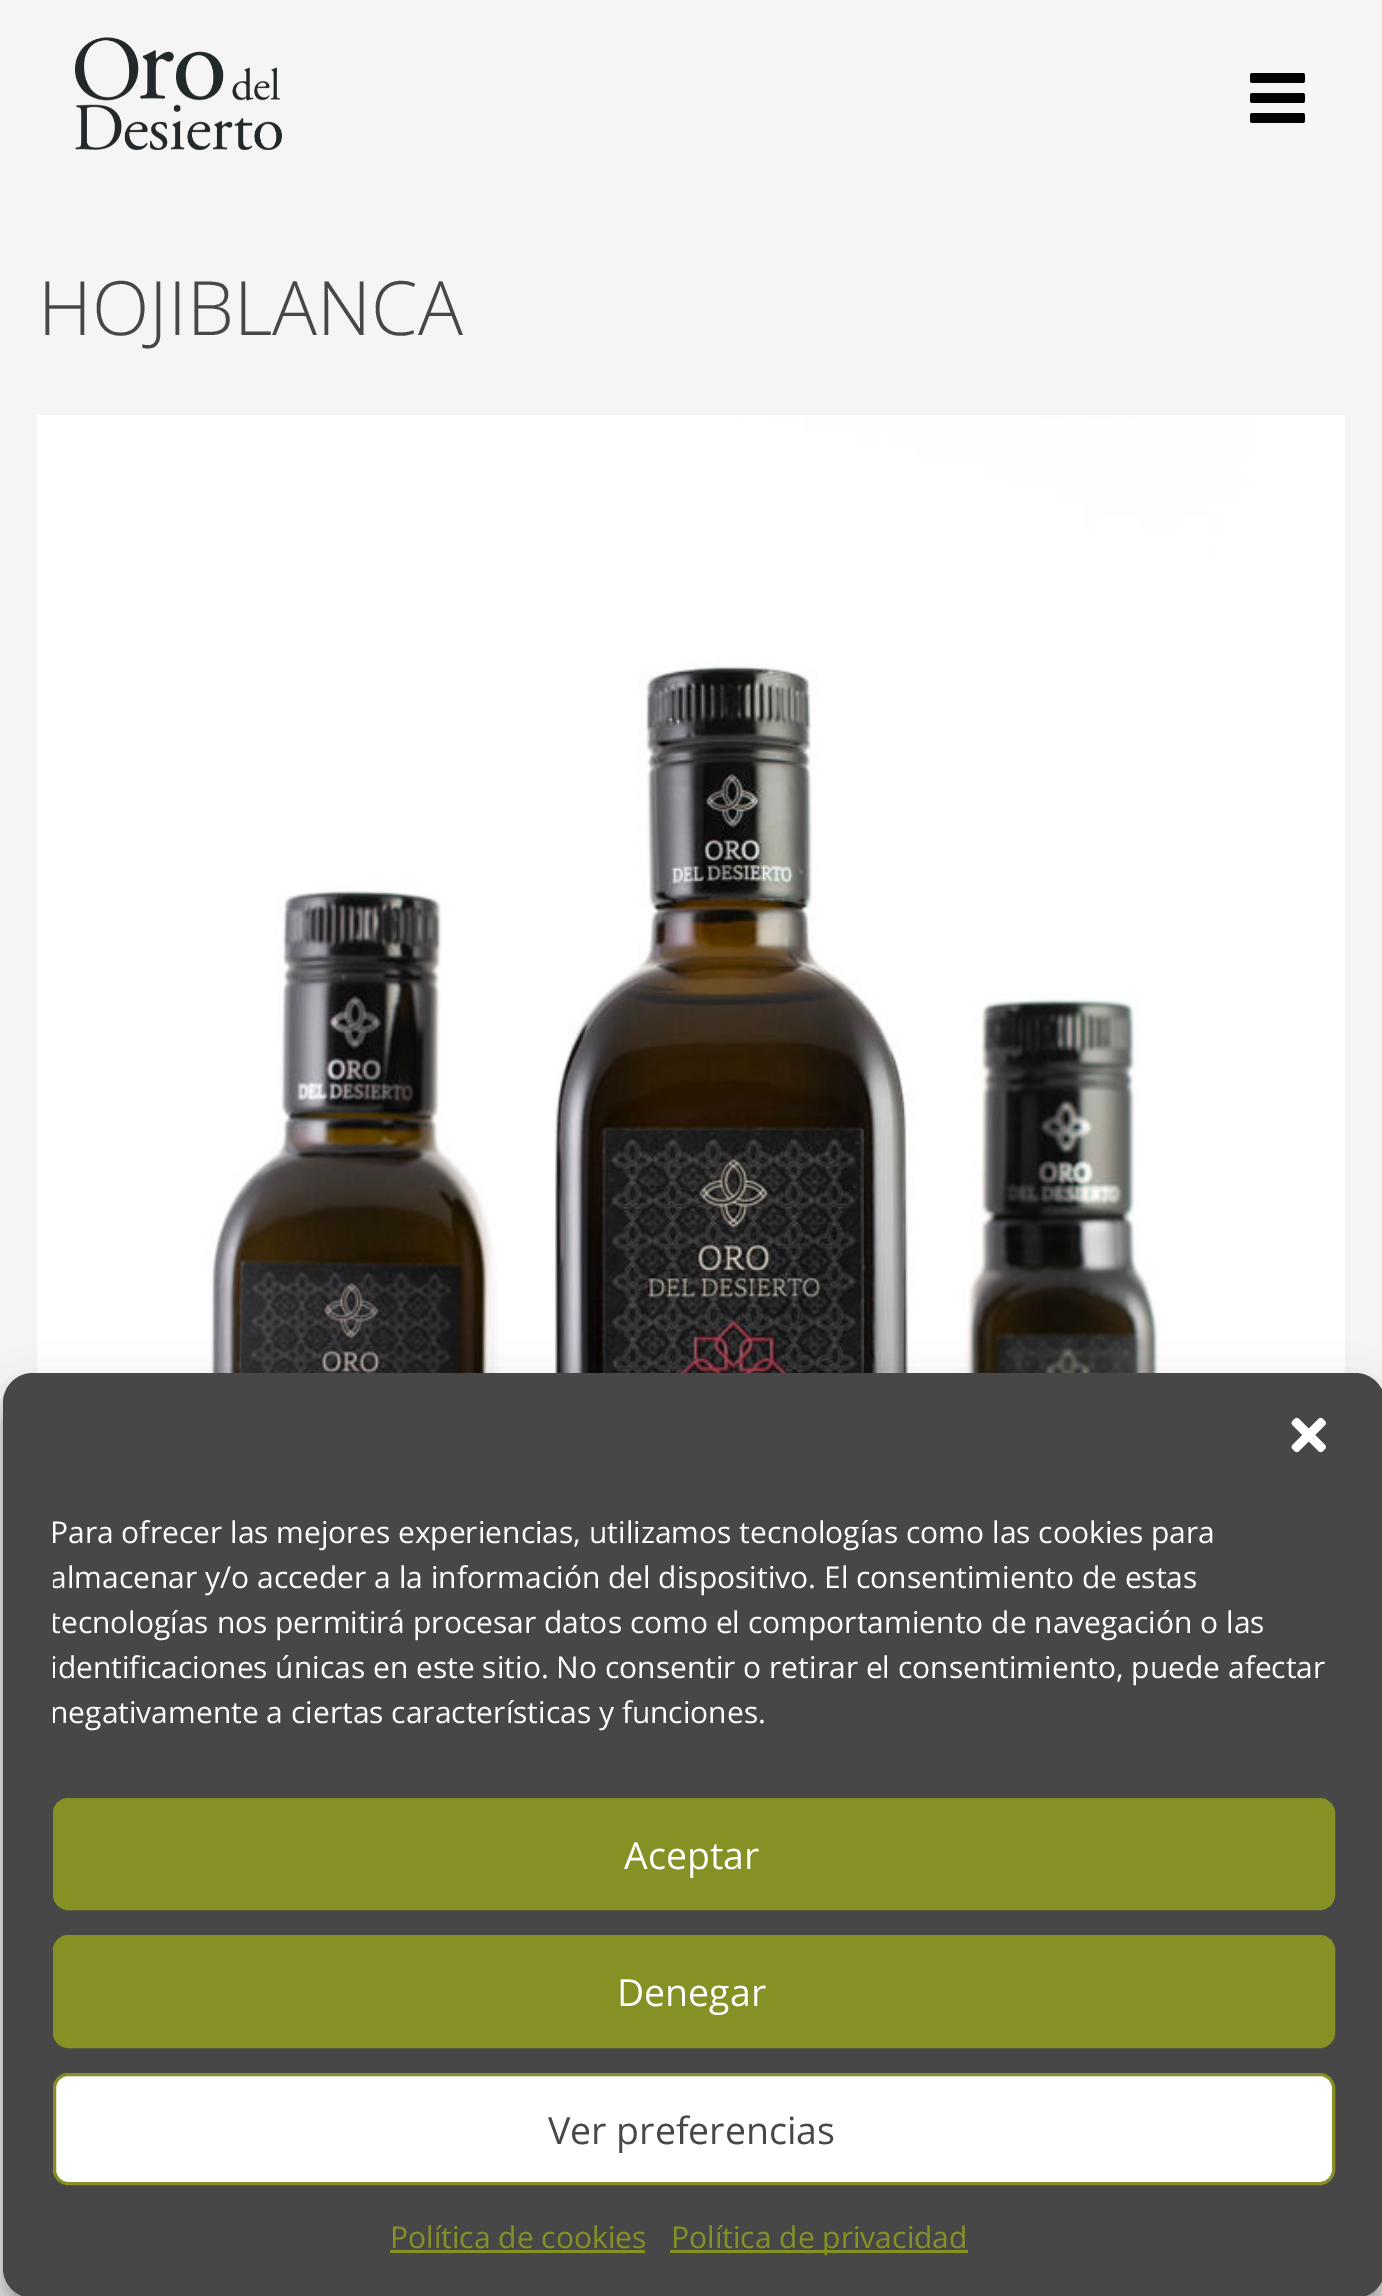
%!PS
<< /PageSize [1382 2296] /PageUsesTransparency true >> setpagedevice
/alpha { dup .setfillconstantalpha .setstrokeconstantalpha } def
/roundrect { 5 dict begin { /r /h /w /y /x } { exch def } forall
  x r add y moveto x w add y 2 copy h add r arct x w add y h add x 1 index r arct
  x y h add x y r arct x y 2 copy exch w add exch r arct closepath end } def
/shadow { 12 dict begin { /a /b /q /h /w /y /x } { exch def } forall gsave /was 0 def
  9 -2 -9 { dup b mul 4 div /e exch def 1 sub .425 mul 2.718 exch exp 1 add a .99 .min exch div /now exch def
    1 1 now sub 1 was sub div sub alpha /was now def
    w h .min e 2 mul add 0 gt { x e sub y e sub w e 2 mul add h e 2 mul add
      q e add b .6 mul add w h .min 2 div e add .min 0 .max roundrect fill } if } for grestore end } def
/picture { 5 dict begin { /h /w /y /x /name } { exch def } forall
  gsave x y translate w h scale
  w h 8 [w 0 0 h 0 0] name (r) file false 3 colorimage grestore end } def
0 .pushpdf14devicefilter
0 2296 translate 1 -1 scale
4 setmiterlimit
0.961 setgray
0 0 1382 2296 rectfill
(img1.rgb) 75 37 207 113 picture
0 setgray
1250 73 55 10 2.5 roundrect fill
1250 93 55 10 2.5 roundrect fill
1250 113 55 10 2.5 roundrect fill
/OpenSans-Light [75 0 0 -75 0 0] selectfont
0.278 setgray
38 335 moveto (HOJIBLANCA) show
(img2.rgb) 37 415 1308 958 picture
gsave
newpath 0 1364 moveto 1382 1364 lineto 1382 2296 lineto 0 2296 lineto closepath 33 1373 moveto 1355 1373 lineto 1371.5 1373 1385 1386.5 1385 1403 curveto 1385 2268 lineto 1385 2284.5 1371.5 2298 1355 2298 curveto 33 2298 lineto 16.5 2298 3 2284.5 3 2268 curveto 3 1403 lineto 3 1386.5 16.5 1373 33 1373 curveto closepath eoclip newpath
0 setgray
3 1388 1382 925 30 7.5 0.23 shadow
grestore
gsave
newpath 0 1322 moveto 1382 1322 lineto 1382 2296 lineto 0 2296 lineto closepath 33 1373 moveto 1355 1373 lineto 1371.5 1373 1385 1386.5 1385 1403 curveto 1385 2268 lineto 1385 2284.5 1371.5 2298 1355 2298 curveto 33 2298 lineto 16.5 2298 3 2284.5 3 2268 curveto 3 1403 lineto 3 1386.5 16.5 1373 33 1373 curveto closepath eoclip newpath
0 setgray
3 1398 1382 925 30 25 0.19 shadow
grestore
3 1373 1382 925 30 roundrect fill
(img3.rgb) 1291 1417 35 36 picture
gsave
53 1510 1282 238 rectclip
/OpenSans-Regular [30 0 0 -30 0 0] selectfont
1 setgray
50 1543 moveto (Para ofrecer las mejores experiencias, utilizamos tecnologías como las cookies para) show
50 1588 moveto (almacenar y/o acceder a la información del dispositivo. El consentimiento de estas) show
50 1633 moveto (tecnologías nos permitirá procesar datos como el comportamiento de navegación o las) show
50 1678 moveto (identificaciones únicas en este sitio. No consentir o retirar el consentimiento, puede afectar) show
50 1723 moveto (negativamente a ciertas características y funciones.) show
grestore
0.525 0.565 0.145 setrgbcolor
54.5 1799.5 1279 109 13.5 roundrect gsave fill grestore
3 setlinewidth
stroke
/OpenSans-Regular [37.5 0 0 -37.5 0 0] selectfont
1 setgray
624 1869 moveto (Aceptar) show
0.525 0.565 0.145 setrgbcolor
54.5 1936.5 1279 110 13.5 roundrect gsave fill grestore
stroke
1 setgray
617 2006 moveto (Denegar) show
54.5 2074.5 1279 109 13.5 roundrect gsave fill grestore
0.525 0.565 0.145 setrgbcolor
stroke
0.278 setgray
548 2144 moveto (Ver preferencias) show
/OpenSans-Regular [30 0 0 -30 0 0] selectfont
0.525 0.565 0.145 setrgbcolor
390 2248 moveto (Política de cookies) show
390 2250 255 3 rectfill
670 2250 298 3 rectfill
671 2248 moveto (Política de privacidad) show
.poppdf14devicefilter showpage
